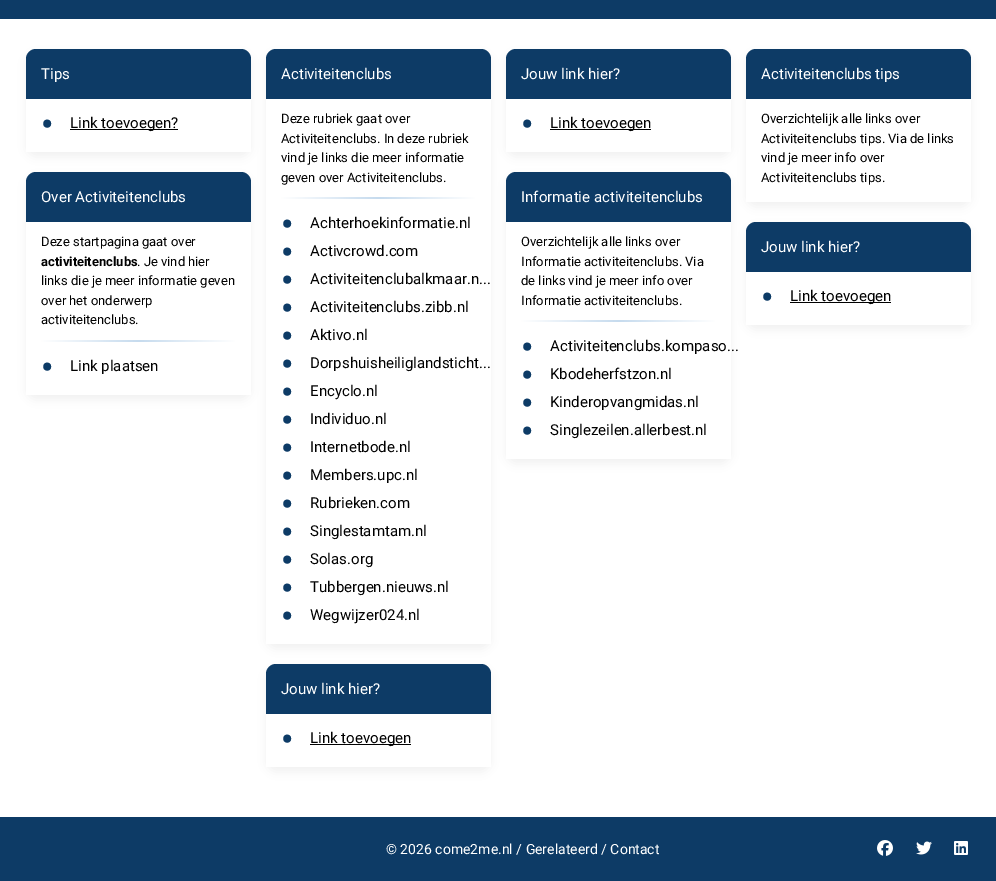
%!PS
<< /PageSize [996 881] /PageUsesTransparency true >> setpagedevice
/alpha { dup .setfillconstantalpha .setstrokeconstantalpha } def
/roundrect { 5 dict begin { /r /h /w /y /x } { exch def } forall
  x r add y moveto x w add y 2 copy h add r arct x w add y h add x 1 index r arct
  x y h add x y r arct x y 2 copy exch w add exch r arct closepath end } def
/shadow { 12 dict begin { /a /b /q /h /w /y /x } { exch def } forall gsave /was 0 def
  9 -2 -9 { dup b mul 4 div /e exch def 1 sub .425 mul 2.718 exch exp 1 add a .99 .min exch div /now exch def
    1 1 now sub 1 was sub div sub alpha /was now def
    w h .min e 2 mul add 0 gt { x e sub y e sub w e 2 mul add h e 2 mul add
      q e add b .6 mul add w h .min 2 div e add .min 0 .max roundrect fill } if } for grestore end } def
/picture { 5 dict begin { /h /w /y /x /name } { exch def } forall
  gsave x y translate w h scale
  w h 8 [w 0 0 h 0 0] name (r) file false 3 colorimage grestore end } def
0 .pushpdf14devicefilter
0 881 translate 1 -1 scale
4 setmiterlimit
1 setgray
0 0 996 881 rectfill
0.051 0.231 0.4 setrgbcolor
0 0 996 19 rectfill
gsave
newpath 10 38 moveto 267 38 lineto 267 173 lineto 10 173 lineto closepath 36 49 moveto 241 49 lineto 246.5 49 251 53.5 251 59 curveto 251 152 lineto 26 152 lineto 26 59 lineto 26 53.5 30.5 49 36 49 curveto closepath eoclip newpath
0 setgray
26 54 225 103 10 5 0.05 shadow
grestore
newpath 36 49 moveto 241 49 lineto 246.5 49 251 53.5 251 59 curveto 251 99 lineto 26 99 lineto 26 59 lineto 26 53.5 30.5 49 36 49 curveto closepath fill
/Roboto-Regular [15 0 0 -15 0 0] selectfont
1 setgray
41 79 moveto (Tips) show
/Roboto-Bold [34 0 0 -34 0 0] selectfont
0.051 0.231 0.4 setrgbcolor
41 136 moveto (•) show
0 setgray
70 129 108 1 rectfill
/Roboto-Regular [15 0 0 -15 0 0] selectfont
70 128 moveto (Link toevoegen?) show
gsave
newpath 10 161 moveto 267 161 lineto 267 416 lineto 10 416 lineto closepath 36 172 moveto 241 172 lineto 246.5 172 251 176.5 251 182 curveto 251 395 lineto 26 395 lineto 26 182 lineto 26 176.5 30.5 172 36 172 curveto closepath eoclip newpath
26 177 225 223 10 5 0.05 shadow
grestore
0.051 0.231 0.4 setrgbcolor
newpath 36 172 moveto 241 172 lineto 246.5 172 251 176.5 251 182 curveto 251 222 lineto 26 222 lineto 26 182 lineto 26 176.5 30.5 172 36 172 curveto closepath fill
1 setgray
41 202 moveto (Over Activiteitenclubs) show
/Roboto-Regular [13 0 0 -13 0 0] selectfont
0 setgray
41 246 moveto (Deze startpagina gaat over) show
/Roboto-Bold [13 0 0 -13 0 0] selectfont
41 266 moveto (activiteitenclubs) show
/Roboto-Regular [13 0 0 -13 0 0] selectfont
137 266 moveto (. Je vind hier) show
41 285 moveto (links die je meer informatie geven) show
41 305 moveto (over het onderwerp) show
41 324 moveto (activiteitenclubs.) show
gsave newpath 41 340 moveto 236 340 lineto 236 342 lineto 41 342 lineto closepath clip newpath
<< /ShadingType 2 /ColorSpace /DeviceRGB /Coords [41 341 236 341] /Extend [true true] /Function << /FunctionType 3 /Domain [0 1] /Functions [<< /FunctionType 2 /Domain [0 1] /C0 [1 1 1] /C1 [0.776 0.859 0.933] /N 1 >> << /FunctionType 2 /Domain [0 1] /C0 [0.776 0.859 0.933] /C1 [1 1 1] /N 1 >>] /Bounds [0.5] /Encode [0 1 0 1] >> >> shfill grestore
/Roboto-Bold [34 0 0 -34 0 0] selectfont
0.051 0.231 0.4 setrgbcolor
41 379 moveto (•) show
/Roboto-Regular [15 0 0 -15 0 0] selectfont
0 setgray
70 371 moveto (Link plaatsen) show
gsave
newpath 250 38 moveto 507 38 lineto 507 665 lineto 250 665 lineto closepath 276 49 moveto 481 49 lineto 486.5 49 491 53.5 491 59 curveto 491 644 lineto 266 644 lineto 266 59 lineto 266 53.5 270.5 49 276 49 curveto closepath eoclip newpath
266 54 225 595 10 5 0.05 shadow
grestore
0.051 0.231 0.4 setrgbcolor
newpath 276 49 moveto 481 49 lineto 486.5 49 491 53.5 491 59 curveto 491 99 lineto 266 99 lineto 266 59 lineto 266 53.5 270.5 49 276 49 curveto closepath fill
1 setgray
281 79 moveto (Activiteitenclubs) show
/Roboto-Regular [13 0 0 -13 0 0] selectfont
0 setgray
281 123 moveto (Deze rubriek gaat over) show
281 143 moveto (Activiteitenclubs. In deze rubriek) show
281 162 moveto (vind je links die meer informatie) show
281 182 moveto (geven over Activiteitenclubs.) show
gsave newpath 281 197 moveto 476 197 lineto 476 199 lineto 281 199 lineto closepath clip newpath
<< /ShadingType 2 /ColorSpace /DeviceRGB /Coords [281 198 476 198] /Extend [true true] /Function << /FunctionType 3 /Domain [0 1] /Functions [<< /FunctionType 2 /Domain [0 1] /C0 [1 1 1] /C1 [0.776 0.859 0.933] /N 1 >> << /FunctionType 2 /Domain [0 1] /C0 [0.776 0.859 0.933] /C1 [1 1 1] /N 1 >>] /Bounds [0.5] /Encode [0 1 0 1] >> >> shfill grestore
/Roboto-Bold [34 0 0 -34 0 0] selectfont
0.051 0.231 0.4 setrgbcolor
281 236 moveto (•) show
/Roboto-Regular [15 0 0 -15 0 0] selectfont
0 setgray
310 228 moveto (Achterhoekinformatie.nl) show
/Roboto-Bold [34 0 0 -34 0 0] selectfont
0.051 0.231 0.4 setrgbcolor
281 264 moveto (•) show
/Roboto-Regular [15 0 0 -15 0 0] selectfont
0 setgray
310 256 moveto (Activcrowd.com) show
/Roboto-Bold [34 0 0 -34 0 0] selectfont
0.051 0.231 0.4 setrgbcolor
281 292 moveto (•) show
/Roboto-Regular [15 0 0 -15 0 0] selectfont
0 setgray
310 284 moveto (Activiteitenclubalkmaar.n...) show
/Roboto-Bold [34 0 0 -34 0 0] selectfont
0.051 0.231 0.4 setrgbcolor
281 320 moveto (•) show
/Roboto-Regular [15 0 0 -15 0 0] selectfont
0 setgray
310 312 moveto (Activiteitenclubs.zibb.nl) show
/Roboto-Bold [34 0 0 -34 0 0] selectfont
0.051 0.231 0.4 setrgbcolor
281 348 moveto (•) show
/Roboto-Regular [15 0 0 -15 0 0] selectfont
0 setgray
310 340 moveto (Aktivo.nl) show
/Roboto-Bold [34 0 0 -34 0 0] selectfont
0.051 0.231 0.4 setrgbcolor
281 376 moveto (•) show
/Roboto-Regular [15 0 0 -15 0 0] selectfont
0 setgray
310 368 moveto (Dorpshuisheiliglandsticht...) show
/Roboto-Bold [34 0 0 -34 0 0] selectfont
0.051 0.231 0.4 setrgbcolor
281 404 moveto (•) show
/Roboto-Regular [15 0 0 -15 0 0] selectfont
0 setgray
310 396 moveto (Encyclo.nl) show
/Roboto-Bold [34 0 0 -34 0 0] selectfont
0.051 0.231 0.4 setrgbcolor
281 432 moveto (•) show
/Roboto-Regular [15 0 0 -15 0 0] selectfont
0 setgray
310 424 moveto (Individuo.nl) show
/Roboto-Bold [34 0 0 -34 0 0] selectfont
0.051 0.231 0.4 setrgbcolor
281 460 moveto (•) show
/Roboto-Regular [15 0 0 -15 0 0] selectfont
0 setgray
310 452 moveto (Internetbode.nl) show
/Roboto-Bold [34 0 0 -34 0 0] selectfont
0.051 0.231 0.4 setrgbcolor
281 488 moveto (•) show
/Roboto-Regular [15 0 0 -15 0 0] selectfont
0 setgray
310 480 moveto (Members.upc.nl) show
/Roboto-Bold [34 0 0 -34 0 0] selectfont
0.051 0.231 0.4 setrgbcolor
281 516 moveto (•) show
/Roboto-Regular [15 0 0 -15 0 0] selectfont
0 setgray
310 508 moveto (Rubrieken.com) show
/Roboto-Bold [34 0 0 -34 0 0] selectfont
0.051 0.231 0.4 setrgbcolor
281 544 moveto (•) show
/Roboto-Regular [15 0 0 -15 0 0] selectfont
0 setgray
310 536 moveto (Singlestamtam.nl) show
/Roboto-Bold [34 0 0 -34 0 0] selectfont
0.051 0.231 0.4 setrgbcolor
281 572 moveto (•) show
/Roboto-Regular [15 0 0 -15 0 0] selectfont
0 setgray
310 564 moveto (Solas.org) show
/Roboto-Bold [34 0 0 -34 0 0] selectfont
0.051 0.231 0.4 setrgbcolor
281 600 moveto (•) show
/Roboto-Regular [15 0 0 -15 0 0] selectfont
0 setgray
310 592 moveto (Tubbergen.nieuws.nl) show
/Roboto-Bold [34 0 0 -34 0 0] selectfont
0.051 0.231 0.4 setrgbcolor
281 628 moveto (•) show
/Roboto-Regular [15 0 0 -15 0 0] selectfont
0 setgray
310 620 moveto (Wegwijzer024.nl) show
gsave
newpath 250 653 moveto 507 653 lineto 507 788 lineto 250 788 lineto closepath 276 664 moveto 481 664 lineto 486.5 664 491 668.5 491 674 curveto 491 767 lineto 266 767 lineto 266 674 lineto 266 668.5 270.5 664 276 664 curveto closepath eoclip newpath
266 669 225 103 10 5 0.05 shadow
grestore
0.051 0.231 0.4 setrgbcolor
newpath 276 664 moveto 481 664 lineto 486.5 664 491 668.5 491 674 curveto 491 714 lineto 266 714 lineto 266 674 lineto 266 668.5 270.5 664 276 664 curveto closepath fill
1 setgray
281 694 moveto (Jouw link hier?) show
/Roboto-Bold [34 0 0 -34 0 0] selectfont
0.051 0.231 0.4 setrgbcolor
281 751 moveto (•) show
0 setgray
310 744 101 1 rectfill
/Roboto-Regular [15 0 0 -15 0 0] selectfont
310 743 moveto (Link toevoegen) show
gsave
newpath 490 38 moveto 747 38 lineto 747 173 lineto 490 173 lineto closepath 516 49 moveto 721 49 lineto 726.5 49 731 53.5 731 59 curveto 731 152 lineto 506 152 lineto 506 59 lineto 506 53.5 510.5 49 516 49 curveto closepath eoclip newpath
506 54 225 103 10 5 0.05 shadow
grestore
0.051 0.231 0.4 setrgbcolor
newpath 516 49 moveto 721 49 lineto 726.5 49 731 53.5 731 59 curveto 731 99 lineto 506 99 lineto 506 59 lineto 506 53.5 510.5 49 516 49 curveto closepath fill
1 setgray
521 79 moveto (Jouw link hier?) show
/Roboto-Bold [34 0 0 -34 0 0] selectfont
0.051 0.231 0.4 setrgbcolor
521 136 moveto (•) show
0 setgray
550 129 101 1 rectfill
/Roboto-Regular [15 0 0 -15 0 0] selectfont
550 128 moveto (Link toevoegen) show
gsave
newpath 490 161 moveto 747 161 lineto 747 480 lineto 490 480 lineto closepath 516 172 moveto 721 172 lineto 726.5 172 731 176.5 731 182 curveto 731 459 lineto 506 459 lineto 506 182 lineto 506 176.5 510.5 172 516 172 curveto closepath eoclip newpath
506 177 225 287 10 5 0.05 shadow
grestore
0.051 0.231 0.4 setrgbcolor
newpath 516 172 moveto 721 172 lineto 726.5 172 731 176.5 731 182 curveto 731 222 lineto 506 222 lineto 506 182 lineto 506 176.5 510.5 172 516 172 curveto closepath fill
1 setgray
521 202 moveto (Informatie activiteitenclubs) show
/Roboto-Regular [13 0 0 -13 0 0] selectfont
0 setgray
521 246 moveto (Overzichtelijk alle links over) show
521 266 moveto (Informatie activiteitenclubs. Via) show
521 285 moveto (de links vind je meer info over) show
521 305 moveto (Informatie activiteitenclubs.) show
gsave newpath 521 320 moveto 716 320 lineto 716 322 lineto 521 322 lineto closepath clip newpath
<< /ShadingType 2 /ColorSpace /DeviceRGB /Coords [521 321 716 321] /Extend [true true] /Function << /FunctionType 3 /Domain [0 1] /Functions [<< /FunctionType 2 /Domain [0 1] /C0 [1 1 1] /C1 [0.776 0.859 0.933] /N 1 >> << /FunctionType 2 /Domain [0 1] /C0 [0.776 0.859 0.933] /C1 [1 1 1] /N 1 >>] /Bounds [0.5] /Encode [0 1 0 1] >> >> shfill grestore
/Roboto-Bold [34 0 0 -34 0 0] selectfont
0.051 0.231 0.4 setrgbcolor
521 359 moveto (•) show
/Roboto-Regular [15 0 0 -15 0 0] selectfont
0 setgray
550 351 moveto (Activiteitenclubs.kompaso...) show
/Roboto-Bold [34 0 0 -34 0 0] selectfont
0.051 0.231 0.4 setrgbcolor
521 387 moveto (•) show
/Roboto-Regular [15 0 0 -15 0 0] selectfont
0 setgray
550 379 moveto (Kbodeherfstzon.nl) show
/Roboto-Bold [34 0 0 -34 0 0] selectfont
0.051 0.231 0.4 setrgbcolor
521 415 moveto (•) show
/Roboto-Regular [15 0 0 -15 0 0] selectfont
0 setgray
550 407 moveto (Kinderopvangmidas.nl) show
/Roboto-Bold [34 0 0 -34 0 0] selectfont
0.051 0.231 0.4 setrgbcolor
521 443 moveto (•) show
/Roboto-Regular [15 0 0 -15 0 0] selectfont
0 setgray
550 435 moveto (Singlezeilen.allerbest.nl) show
gsave
newpath 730 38 moveto 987 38 lineto 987 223 lineto 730 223 lineto closepath 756 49 moveto 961 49 lineto 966.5 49 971 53.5 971 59 curveto 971 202 lineto 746 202 lineto 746 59 lineto 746 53.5 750.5 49 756 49 curveto closepath eoclip newpath
746 54 225 153 10 5 0.05 shadow
grestore
0.051 0.231 0.4 setrgbcolor
newpath 756 49 moveto 961 49 lineto 966.5 49 971 53.5 971 59 curveto 971 99 lineto 746 99 lineto 746 59 lineto 746 53.5 750.5 49 756 49 curveto closepath fill
1 setgray
761 79 moveto (Activiteitenclubs tips) show
/Roboto-Regular [13 0 0 -13 0 0] selectfont
0 setgray
761 123 moveto (Overzichtelijk alle links over) show
761 143 moveto (Activiteitenclubs tips. Via de links) show
761 162 moveto (vind je meer info over) show
761 182 moveto (Activiteitenclubs tips.) show
gsave
newpath 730 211 moveto 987 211 lineto 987 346 lineto 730 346 lineto closepath 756 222 moveto 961 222 lineto 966.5 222 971 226.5 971 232 curveto 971 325 lineto 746 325 lineto 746 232 lineto 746 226.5 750.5 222 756 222 curveto closepath eoclip newpath
746 227 225 103 10 5 0.05 shadow
grestore
0.051 0.231 0.4 setrgbcolor
newpath 756 222 moveto 961 222 lineto 966.5 222 971 226.5 971 232 curveto 971 272 lineto 746 272 lineto 746 232 lineto 746 226.5 750.5 222 756 222 curveto closepath fill
/Roboto-Regular [15 0 0 -15 0 0] selectfont
1 setgray
761 252 moveto (Jouw link hier?) show
/Roboto-Bold [34 0 0 -34 0 0] selectfont
0.051 0.231 0.4 setrgbcolor
761 309 moveto (•) show
0 setgray
790 302 101 1 rectfill
/Roboto-Regular [15 0 0 -15 0 0] selectfont
790 301 moveto (Link toevoegen) show
0.051 0.231 0.4 setrgbcolor
0 817 996 64 rectfill
/Roboto-Regular [14 0 0 -14 0 0] selectfont
1 setgray
386 854 moveto (© 2026 come2me.nl / Gerelateerd / Contact) show
(img1.rgb) 877 840 16 16 picture
(img2.rgb) 916 841 16 14 picture
(img3.rgb) 954 841 14 14 picture
.poppdf14devicefilter showpage
